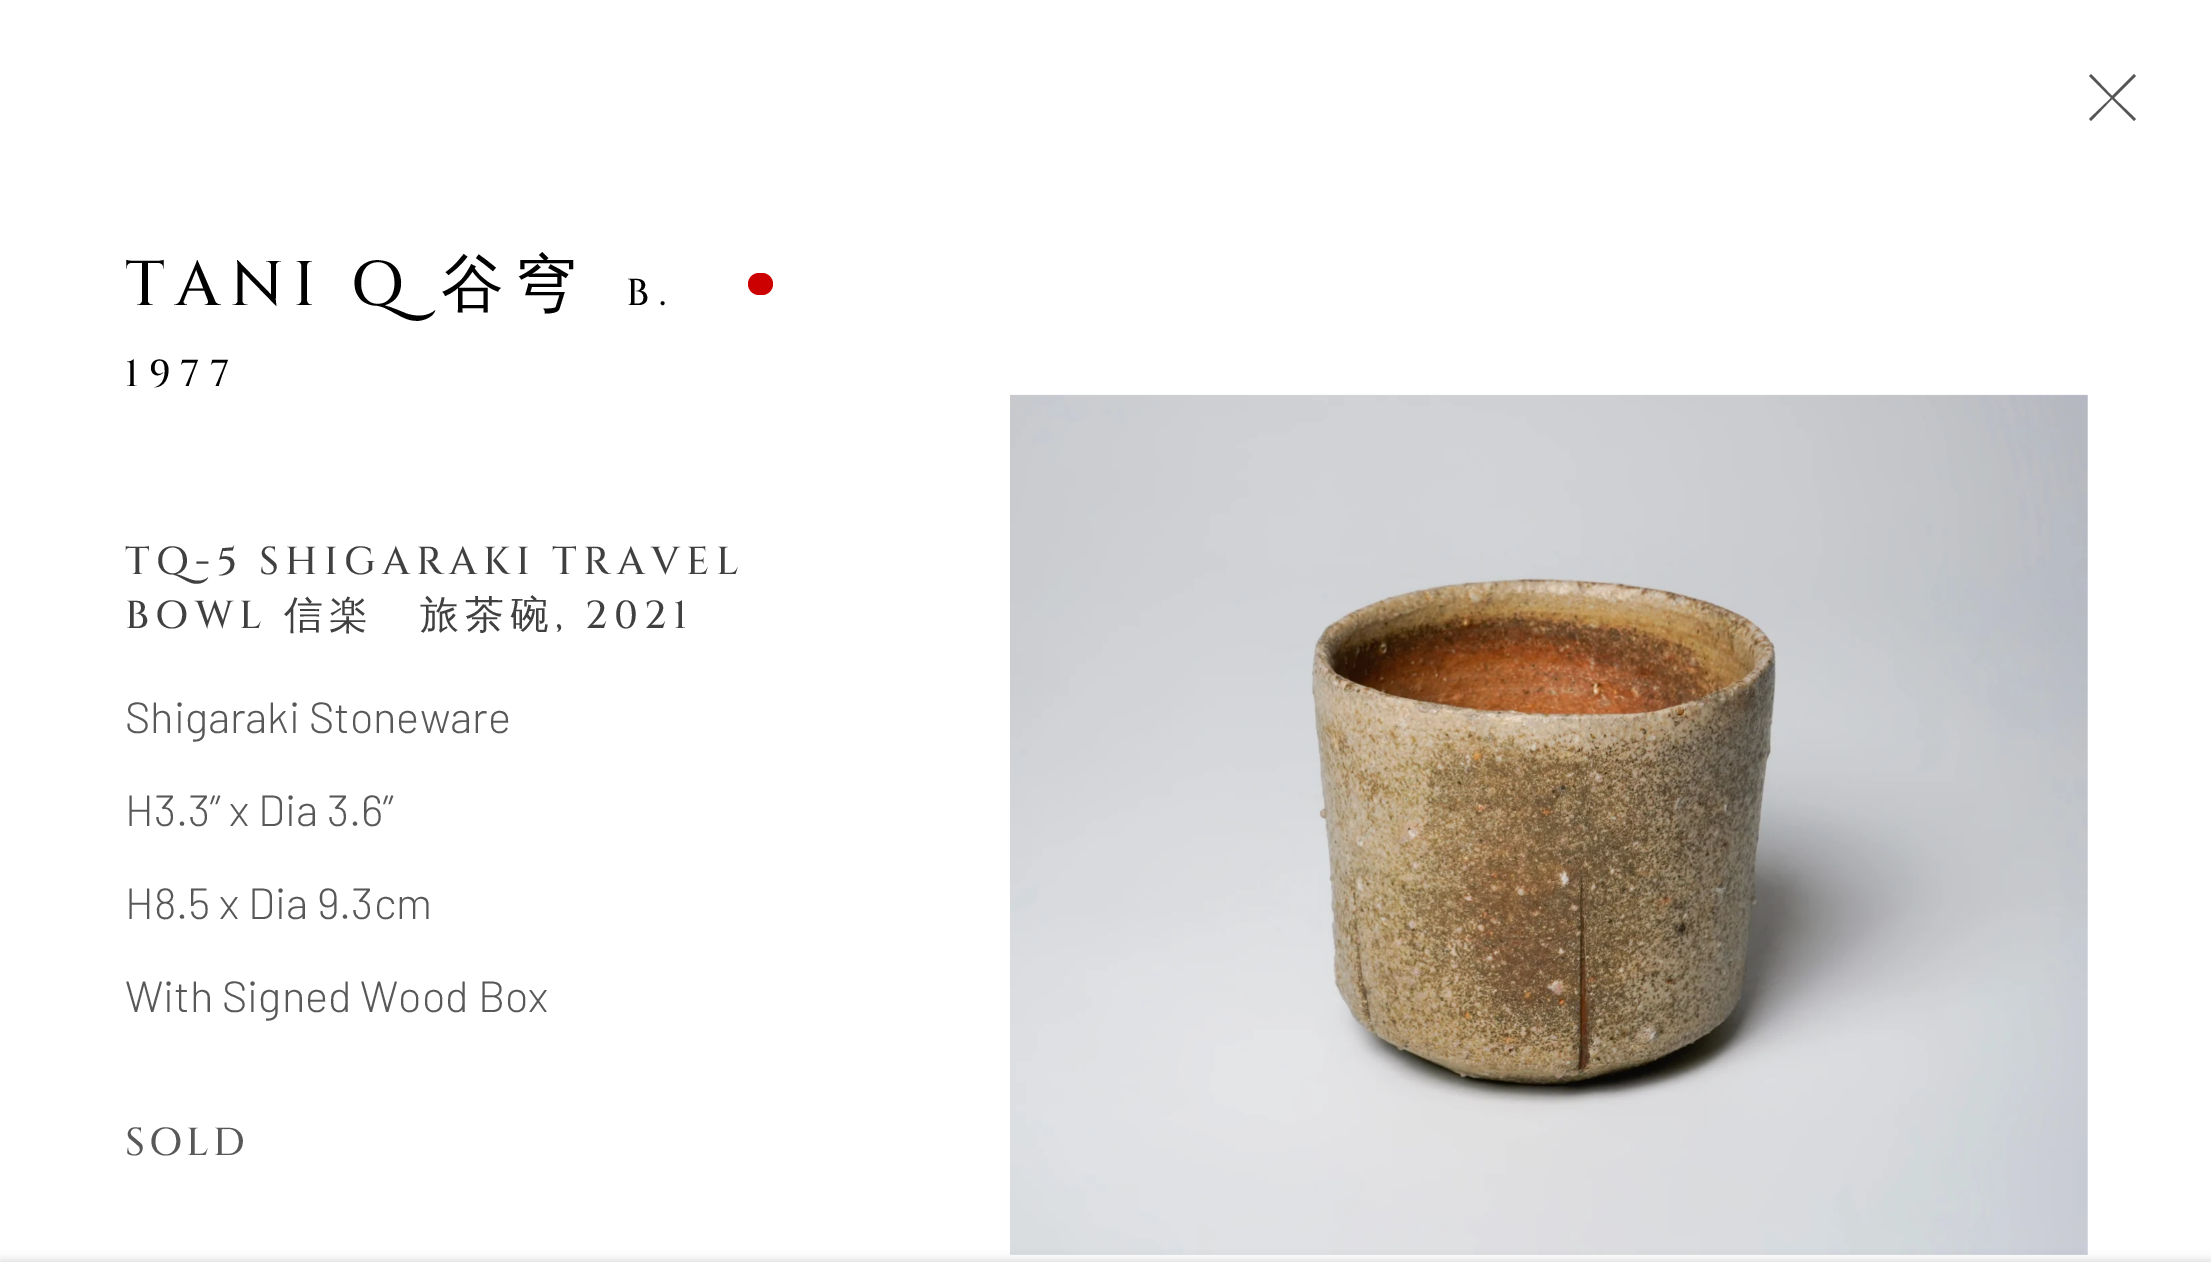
%!PS
<< /PageSize [2211 1262] /PageUsesTransparency true >> setpagedevice
/alpha { dup .setfillconstantalpha .setstrokeconstantalpha } def
/roundrect { 5 dict begin { /r /h /w /y /x } { exch def } forall
  x r add y moveto x w add y 2 copy h add r arct x w add y h add x 1 index r arct
  x y h add x y r arct x y 2 copy exch w add exch r arct closepath end } def
/shadow { 12 dict begin { /a /b /q /h /w /y /x } { exch def } forall gsave /was 0 def
  9 -2 -9 { dup b mul 4 div /e exch def 1 sub .425 mul 2.718 exch exp 1 add a .99 .min exch div /now exch def
    1 1 now sub 1 was sub div sub alpha /was now def
    w h .min e 2 mul add 0 gt { x e sub y e sub w e 2 mul add h e 2 mul add
      q e add b .6 mul add w h .min 2 div e add .min 0 .max roundrect fill } if } for grestore end } def
/picture { 5 dict begin { /h /w /y /x /name } { exch def } forall
  gsave x y translate w h scale
  w h 8 [w 0 0 h 0 0] name (r) file false 3 colorimage grestore end } def
0 .pushpdf14devicefilter
0 1262 translate 1 -1 scale
4 setmiterlimit
1 setgray
0 0 2211 1262 rectfill
0.333 setgray
newpath 2136 76 moveto 2134 74 lineto 2112 96 lineto 2091 74 lineto 2089 76 lineto 2111 98 lineto 2089 119 lineto 2091 121 lineto 2112 99 lineto 2134 121 lineto 2136 119 lineto 2114 98 lineto closepath fill
/Cinzel-Medium [63 0 0 -63 0 0] selectfont
0.004 setgray
125 305 moveto 10 0 (TANI Q) ashow
/WenQuanYiZenHei-Medium [63 0 0 -63 0 0] selectfont
441 305 moveto 10 0 (谷穹) ashow
/Cinzel-Medium [37.5 0 0 -37.5 0 0] selectfont
626 305 moveto 10 0 (B.) ashow
125 386 moveto 10 0 (1977) ashow
0.8 0 0 setrgbcolor
748 273 25 22 11 roundrect fill
/Cinzel-Medium [39 0 0 -39 0 0] selectfont
0.251 setgray
125 574 moveto 6.25 0 (TQ-5 SHIGARAKI TRAVEL) ashow
125 628 moveto 6.25 0 (BOWL) ashow
/WenQuanYiZenHei-Medium [39 0 0 -39 0 0] selectfont
284 628 moveto 6.25 0 (信楽　旅茶碗) ashow
/Cinzel-Medium [39 0 0 -39 0 0] selectfont
555 628 moveto 6.25 0 (, 2021) ashow
/Barlow-Light [43.5 0 0 -43.5 0 0] selectfont
0.345 setgray
125 733 moveto (Shigaraki Stoneware) show
125 826 moveto (H3.3” x Dia 3.6”) show
125 919 moveto (H8.5 x Dia 9.3cm) show
125 1012 moveto (With Signed Wood Box) show
/Cinzel-Medium [39 0 0 -39 0 0] selectfont
125 1155 moveto 4 0 (SOLD) ashow
(img1.rgb) 1010 394 1078 861 picture
0 setgray
0 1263 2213 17 0 6 0.23 shadow
.poppdf14devicefilter showpage
